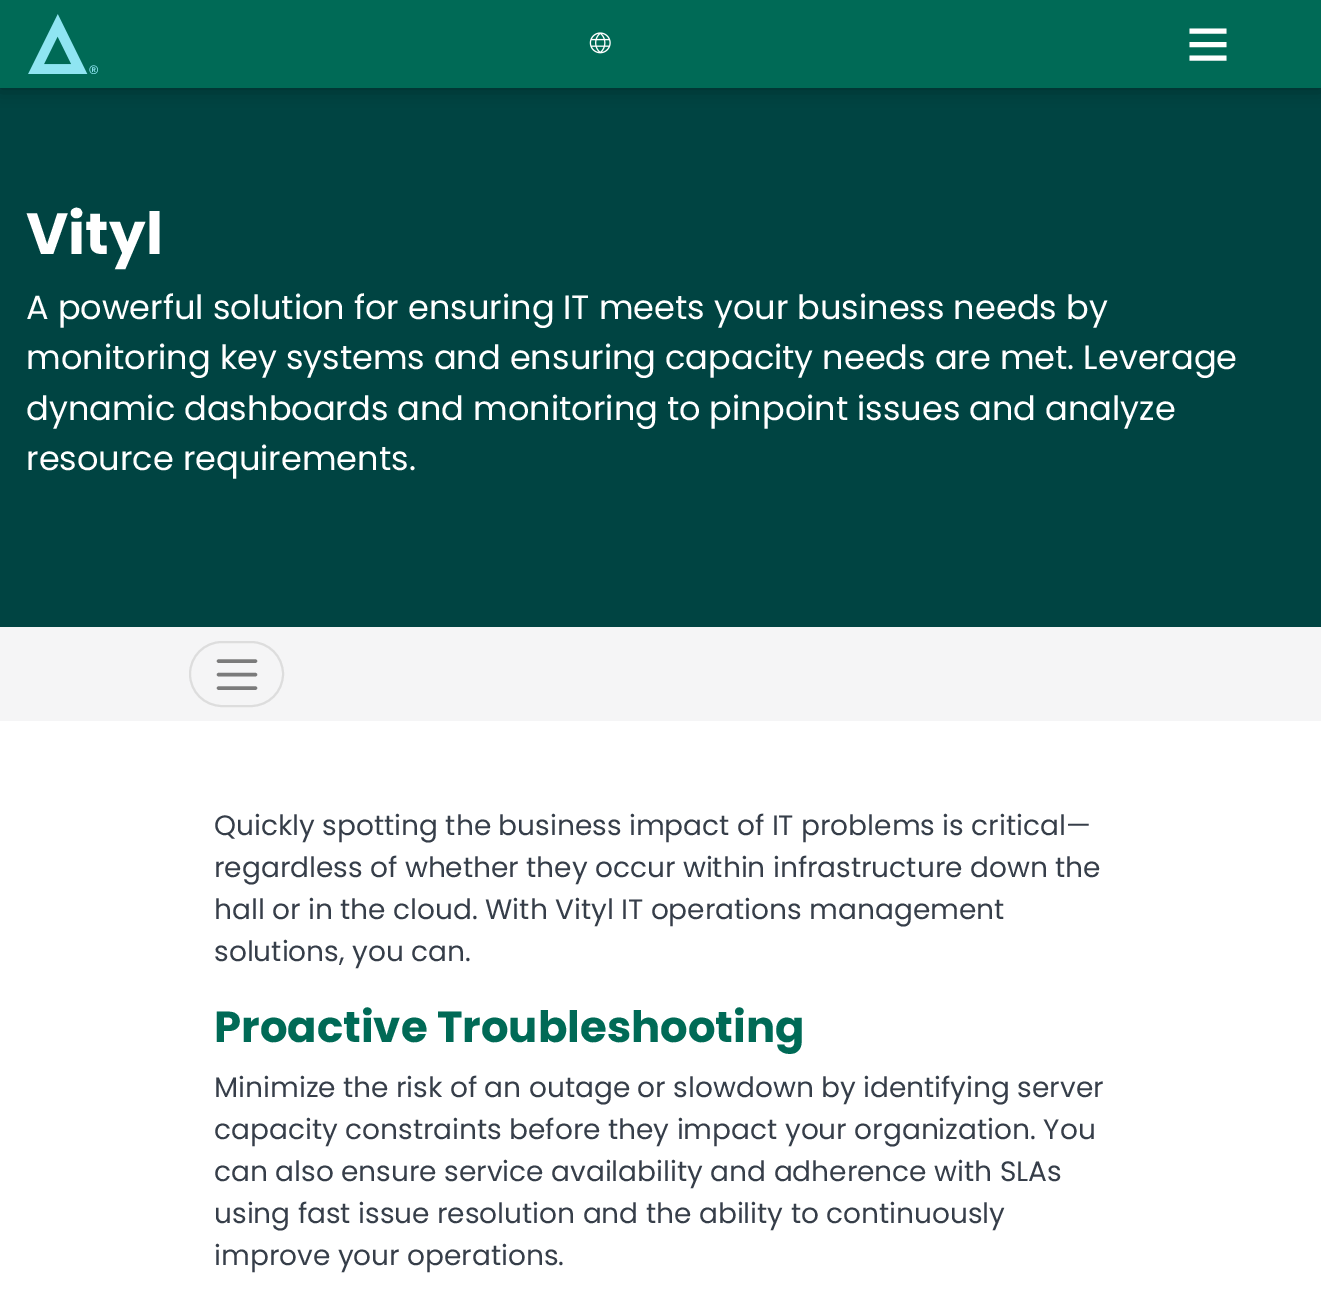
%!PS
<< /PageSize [1321 1289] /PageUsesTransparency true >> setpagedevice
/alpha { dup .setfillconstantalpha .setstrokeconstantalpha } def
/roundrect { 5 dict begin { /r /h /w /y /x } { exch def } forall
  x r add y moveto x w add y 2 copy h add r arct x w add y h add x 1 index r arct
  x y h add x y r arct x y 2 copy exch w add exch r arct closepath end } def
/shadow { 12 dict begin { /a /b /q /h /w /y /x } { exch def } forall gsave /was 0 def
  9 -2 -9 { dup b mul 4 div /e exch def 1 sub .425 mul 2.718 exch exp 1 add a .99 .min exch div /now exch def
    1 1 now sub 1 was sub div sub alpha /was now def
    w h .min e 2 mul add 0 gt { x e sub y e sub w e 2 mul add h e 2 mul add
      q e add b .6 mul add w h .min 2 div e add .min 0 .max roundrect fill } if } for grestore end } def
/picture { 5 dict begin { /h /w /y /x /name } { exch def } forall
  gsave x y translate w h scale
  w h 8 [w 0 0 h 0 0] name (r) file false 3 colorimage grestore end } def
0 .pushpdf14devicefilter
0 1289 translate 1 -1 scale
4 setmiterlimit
1 setgray
0 0 1321 1289 rectfill
0 0.267 0.259 setrgbcolor
0 88 1321 539 rectfill
0 setgray
0 0 1321 88 0 9 0.4 shadow
0 0.416 0.337 setrgbcolor
0 0 1321 88 rectfill
(img1.rgb) 28 14 70 60 picture
(img2.rgb) 589 32 22 22 picture
1 setgray
5 setlinewidth
newpath 1189.5 31 moveto 1226.5 31 lineto 1189.5 44.5 moveto 1226.5 44.5 lineto 1189.5 58 moveto 1226.5 58 lineto stroke
/Poppins-Bold [58 0 0 -58 0 0] selectfont
26 254 moveto (Vityl) show
/Poppins-Regular [33.6 0 0 -33.6 0 0] selectfont
26 319 moveto (A powerful solution for ensuring IT meets your business needs by) show
26 369 moveto (monitoring key systems and ensuring capacity needs are met. Leverage) show
26 420 moveto (dynamic dashboards and monitoring to pinpoint issues and analyze) show
26 470 moveto (resource requirements.) show
0.961 0.961 0.965 setrgbcolor
0 627 1321 94 rectfill
0.867 setgray
2 setlinewidth
190 642 93 64 32 roundrect stroke
0.482 setgray
3.4 setlinewidth
1 setlinecap
newpath 218.5 661 moveto 255.5 661 lineto 218.5 674.5 moveto 255.5 674.5 lineto 218.5 688 moveto 255.5 688 lineto stroke
/Poppins-Regular [28 0 0 -28 0 0] selectfont
0.212 0.243 0.286 setrgbcolor
214 835 moveto (Quickly spotting the business impact of IT problems is critical—) show
214 877 moveto (regardless of whether they occur within infrastructure down the) show
214 919 moveto (hall or in the cloud. With Vityl IT operations management) show
214 961 moveto (solutions, you can.) show
/Poppins-Bold [43.4 0 0 -43.4 0 0] selectfont
0 0.416 0.337 setrgbcolor
214 1042 moveto (Proactive Troubleshooting) show
/Poppins-Regular [28 0 0 -28 0 0] selectfont
0.212 0.243 0.286 setrgbcolor
214 1097 moveto (Minimize the risk of an outage or slowdown by identifying server) show
214 1139 moveto (capacity constraints before they impact your organization. You) show
214 1181 moveto (can also ensure service availability and adherence with SLAs) show
214 1223 moveto (using fast issue resolution and the ability to continuously) show
214 1265 moveto (improve your operations.) show
.poppdf14devicefilter showpage
